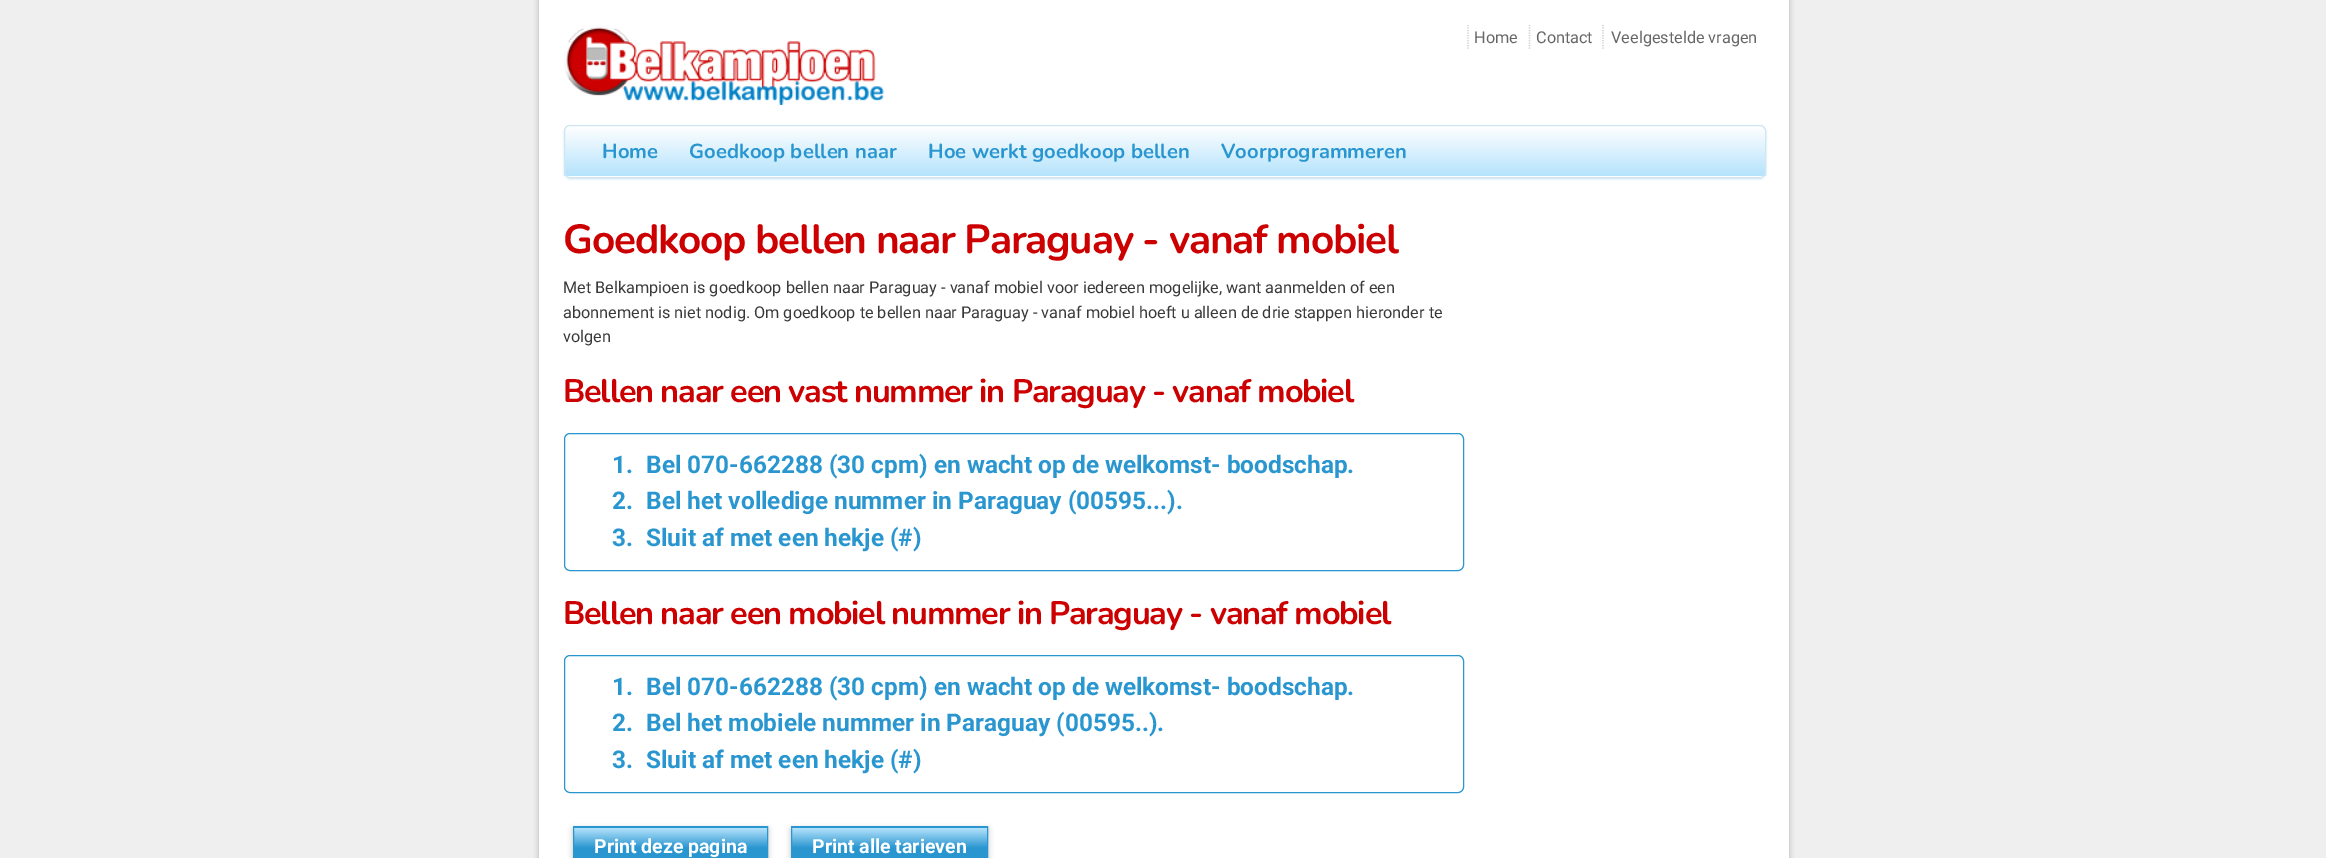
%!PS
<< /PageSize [2326 858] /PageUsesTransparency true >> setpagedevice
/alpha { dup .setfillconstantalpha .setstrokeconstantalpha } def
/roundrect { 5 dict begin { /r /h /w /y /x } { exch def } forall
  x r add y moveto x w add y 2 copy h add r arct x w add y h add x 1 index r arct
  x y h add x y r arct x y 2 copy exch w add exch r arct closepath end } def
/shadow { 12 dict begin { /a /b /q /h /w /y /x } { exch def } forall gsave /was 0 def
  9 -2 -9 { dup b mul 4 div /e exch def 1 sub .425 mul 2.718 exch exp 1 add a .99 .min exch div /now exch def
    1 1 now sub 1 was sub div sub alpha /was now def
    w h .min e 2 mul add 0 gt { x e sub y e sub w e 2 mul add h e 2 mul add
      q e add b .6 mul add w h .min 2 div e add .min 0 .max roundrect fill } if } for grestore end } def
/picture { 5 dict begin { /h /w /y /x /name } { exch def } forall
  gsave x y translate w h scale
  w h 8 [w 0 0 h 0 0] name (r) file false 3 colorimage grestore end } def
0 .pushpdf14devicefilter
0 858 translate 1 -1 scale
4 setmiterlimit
0.937 setgray
0 0 2326 858 rectfill
0 setgray
539 0 1250 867 0 3 0.25 shadow
1 setgray
539 0 1250 858 rectfill
(img1.rgb) 564 25 320 80 picture
0.8 setgray
1.2 setlinewidth
[1.25 1.25] 0 setdash
newpath 1468 25 moveto 1468 50 lineto stroke
/Roboto-Regular [16.25 0 0 -16.25 0 0] selectfont
0.4 setgray
1474 43 moveto (Home) show
0.8 setgray
newpath 1529.5 25 moveto 1529.5 50 lineto stroke
0.4 setgray
1536 43 moveto (Contact) show
0.8 setgray
newpath 1603 25 moveto 1603 50 lineto stroke
0.4 setgray
1611 43 moveto (Veelgestelde vragen) show
0.161 0.588 0.816 setrgbcolor
564 126 1202 53 6 1 0.25 shadow
gsave
564 125 1202 53 6 roundrect clip newpath
gsave newpath 564 126 moveto 1766 126 lineto 1766 176 lineto 564 176 lineto closepath clip newpath
<< /ShadingType 2 /ColorSpace /DeviceRGB /Coords [1165 126 1165 176] /Extend [true true] /Function << /FunctionType 3 /Domain [0 1] /Functions [<< /FunctionType 2 /Domain [0 1] /C0 [1 1 1] /C1 [0.71 0.89 0.988] /N 1 >> << /FunctionType 2 /Domain [0 1] /C0 [0.71 0.89 0.988] /C1 [0.71 0.89 0.988] /N 1 >>] /Bounds [0.99] /Encode [0 1 0 1] >> >> shfill grestore
gsave newpath 564 176 moveto 1766 176 lineto 1766 178 lineto 564 178 lineto closepath clip newpath
<< /ShadingType 2 /ColorSpace /DeviceRGB /Coords [1165 176 1165 226] /Extend [true true] /Function << /FunctionType 3 /Domain [0 1] /Functions [<< /FunctionType 2 /Domain [0 1] /C0 [1 1 1] /C1 [0.71 0.89 0.988] /N 1 >> << /FunctionType 2 /Domain [0 1] /C0 [0.71 0.89 0.988] /C1 [0.71 0.89 0.988] /N 1 >>] /Bounds [0.99] /Encode [0 1 0 1] >> >> shfill grestore
grestore
0.82 0.902 0.945 setrgbcolor
1 setlinewidth
[] 0 setdash
564.5 125.5 1201 52 5.5 roundrect stroke
/Nunito-Bold [20.25 0 0 -20.25 0 0] selectfont
0.161 0.588 0.816 setrgbcolor
602 158 moveto (Home) show
689 158 moveto (Goedkoop bellen naar) show
928 158 moveto (Hoe werkt goedkoop bellen) show
1221 158 moveto (Voorprogrammeren) show
/Nunito-Bold [40.6 0 0 -40.6 0 0] selectfont
0.8 0 0 setrgbcolor
563 253 moveto -1.25 0 (Goedkoop bellen naar Paraguay - vanaf mobiel) ashow
/Roboto-Regular [16.25 0 0 -16.25 0 0] selectfont
0.224 setgray
563 293 moveto (Met Belkampioen is goedkoop bellen naar Paraguay - vanaf mobiel voor iedereen mogelijke, want aanmelden of een) show
563 318 moveto (abonnement is niet nodig. Om goedkoop te bellen naar Paraguay - vanaf mobiel hoeft u alleen de drie stappen hieronder te) show
563 342 moveto (volgen) show
/Nunito-Bold [32.5 0 0 -32.5 0 0] selectfont
0.8 0 0 setrgbcolor
563 402 moveto -1.25 0 (Bellen naar een vast nummer in Paraguay - vanaf mobiel) ashow
0.161 0.588 0.816 setrgbcolor
564.5 433.5 899 137 5.5 roundrect stroke
/Roboto-Bold [24.4 0 0 -24.4 0 0] selectfont
612 473 moveto (1.) show
646 473 moveto (Bel 070-662288 \(30 cpm\) en wacht op de welkomst- boodschap.) show
612 509 moveto (2.) show
646 509 moveto (Bel het volledige nummer in Paraguay \(00595...\).) show
612 546 moveto (3.) show
646 546 moveto (Sluit af met een hekje \(#\)) show
/Nunito-Bold [32.5 0 0 -32.5 0 0] selectfont
0.8 0 0 setrgbcolor
563 624 moveto -1.25 0 (Bellen naar een mobiel nummer in Paraguay - vanaf mobiel) ashow
0.161 0.588 0.816 setrgbcolor
564.5 655.5 899 137 5.5 roundrect stroke
/Roboto-Bold [24.4 0 0 -24.4 0 0] selectfont
612 695 moveto (1.) show
646 695 moveto (Bel 070-662288 \(30 cpm\) en wacht op de welkomst- boodschap.) show
612 731 moveto (2.) show
646 731 moveto (Bel het mobiele nummer in Paraguay \(00595..\).) show
612 768 moveto (3.) show
646 768 moveto (Sluit af met een hekje \(#\)) show
0 setgray
573 829 195 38 0 3 0.25 shadow
gsave newpath 573 827 moveto 768 827 lineto 768 828 lineto 573 828 lineto closepath clip newpath
<< /ShadingType 2 /ColorSpace /DeviceRGB /Coords [670 788 670 828] /Extend [true true] /Function << /FunctionType 3 /Domain [0 1] /Functions [<< /FunctionType 2 /Domain [0 1] /C0 [0.71 0.89 0.988] /C1 [0.161 0.588 0.816] /N 1 >> << /FunctionType 2 /Domain [0 1] /C0 [0.161 0.588 0.816] /C1 [0.161 0.588 0.816] /N 1 >>] /Bounds [0.5] /Encode [0 1 0 1] >> >> shfill grestore
gsave newpath 574 828 moveto 767 828 lineto 767 858 lineto 574 858 lineto closepath clip newpath
<< /ShadingType 2 /ColorSpace /DeviceRGB /Coords [670 828 670 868] /Extend [true true] /Function << /FunctionType 3 /Domain [0 1] /Functions [<< /FunctionType 2 /Domain [0 1] /C0 [0.71 0.89 0.988] /C1 [0.161 0.588 0.816] /N 1 >> << /FunctionType 2 /Domain [0 1] /C0 [0.161 0.588 0.816] /C1 [0.161 0.588 0.816] /N 1 >>] /Bounds [0.5] /Encode [0 1 0 1] >> >> shfill grestore
0.161 0.588 0.816 setrgbcolor
573.5 826.5 194 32 rectstroke
/Roboto-Bold [19.5 0 0 -19.5 0 0] selectfont
1 setgray
594 853 moveto (Print deze pagina) show
0 setgray
791 829 197 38 0 3 0.25 shadow
gsave newpath 791 827 moveto 988 827 lineto 988 828 lineto 791 828 lineto closepath clip newpath
<< /ShadingType 2 /ColorSpace /DeviceRGB /Coords [889 788 889 828] /Extend [true true] /Function << /FunctionType 3 /Domain [0 1] /Functions [<< /FunctionType 2 /Domain [0 1] /C0 [0.71 0.89 0.988] /C1 [0.161 0.588 0.816] /N 1 >> << /FunctionType 2 /Domain [0 1] /C0 [0.161 0.588 0.816] /C1 [0.161 0.588 0.816] /N 1 >>] /Bounds [0.5] /Encode [0 1 0 1] >> >> shfill grestore
gsave newpath 792 828 moveto 987 828 lineto 987 858 lineto 792 858 lineto closepath clip newpath
<< /ShadingType 2 /ColorSpace /DeviceRGB /Coords [889 828 889 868] /Extend [true true] /Function << /FunctionType 3 /Domain [0 1] /Functions [<< /FunctionType 2 /Domain [0 1] /C0 [0.71 0.89 0.988] /C1 [0.161 0.588 0.816] /N 1 >> << /FunctionType 2 /Domain [0 1] /C0 [0.161 0.588 0.816] /C1 [0.161 0.588 0.816] /N 1 >>] /Bounds [0.5] /Encode [0 1 0 1] >> >> shfill grestore
0.161 0.588 0.816 setrgbcolor
791.5 826.5 196 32 rectstroke
1 setgray
812 853 moveto (Print alle tarieven) show
.poppdf14devicefilter showpage
